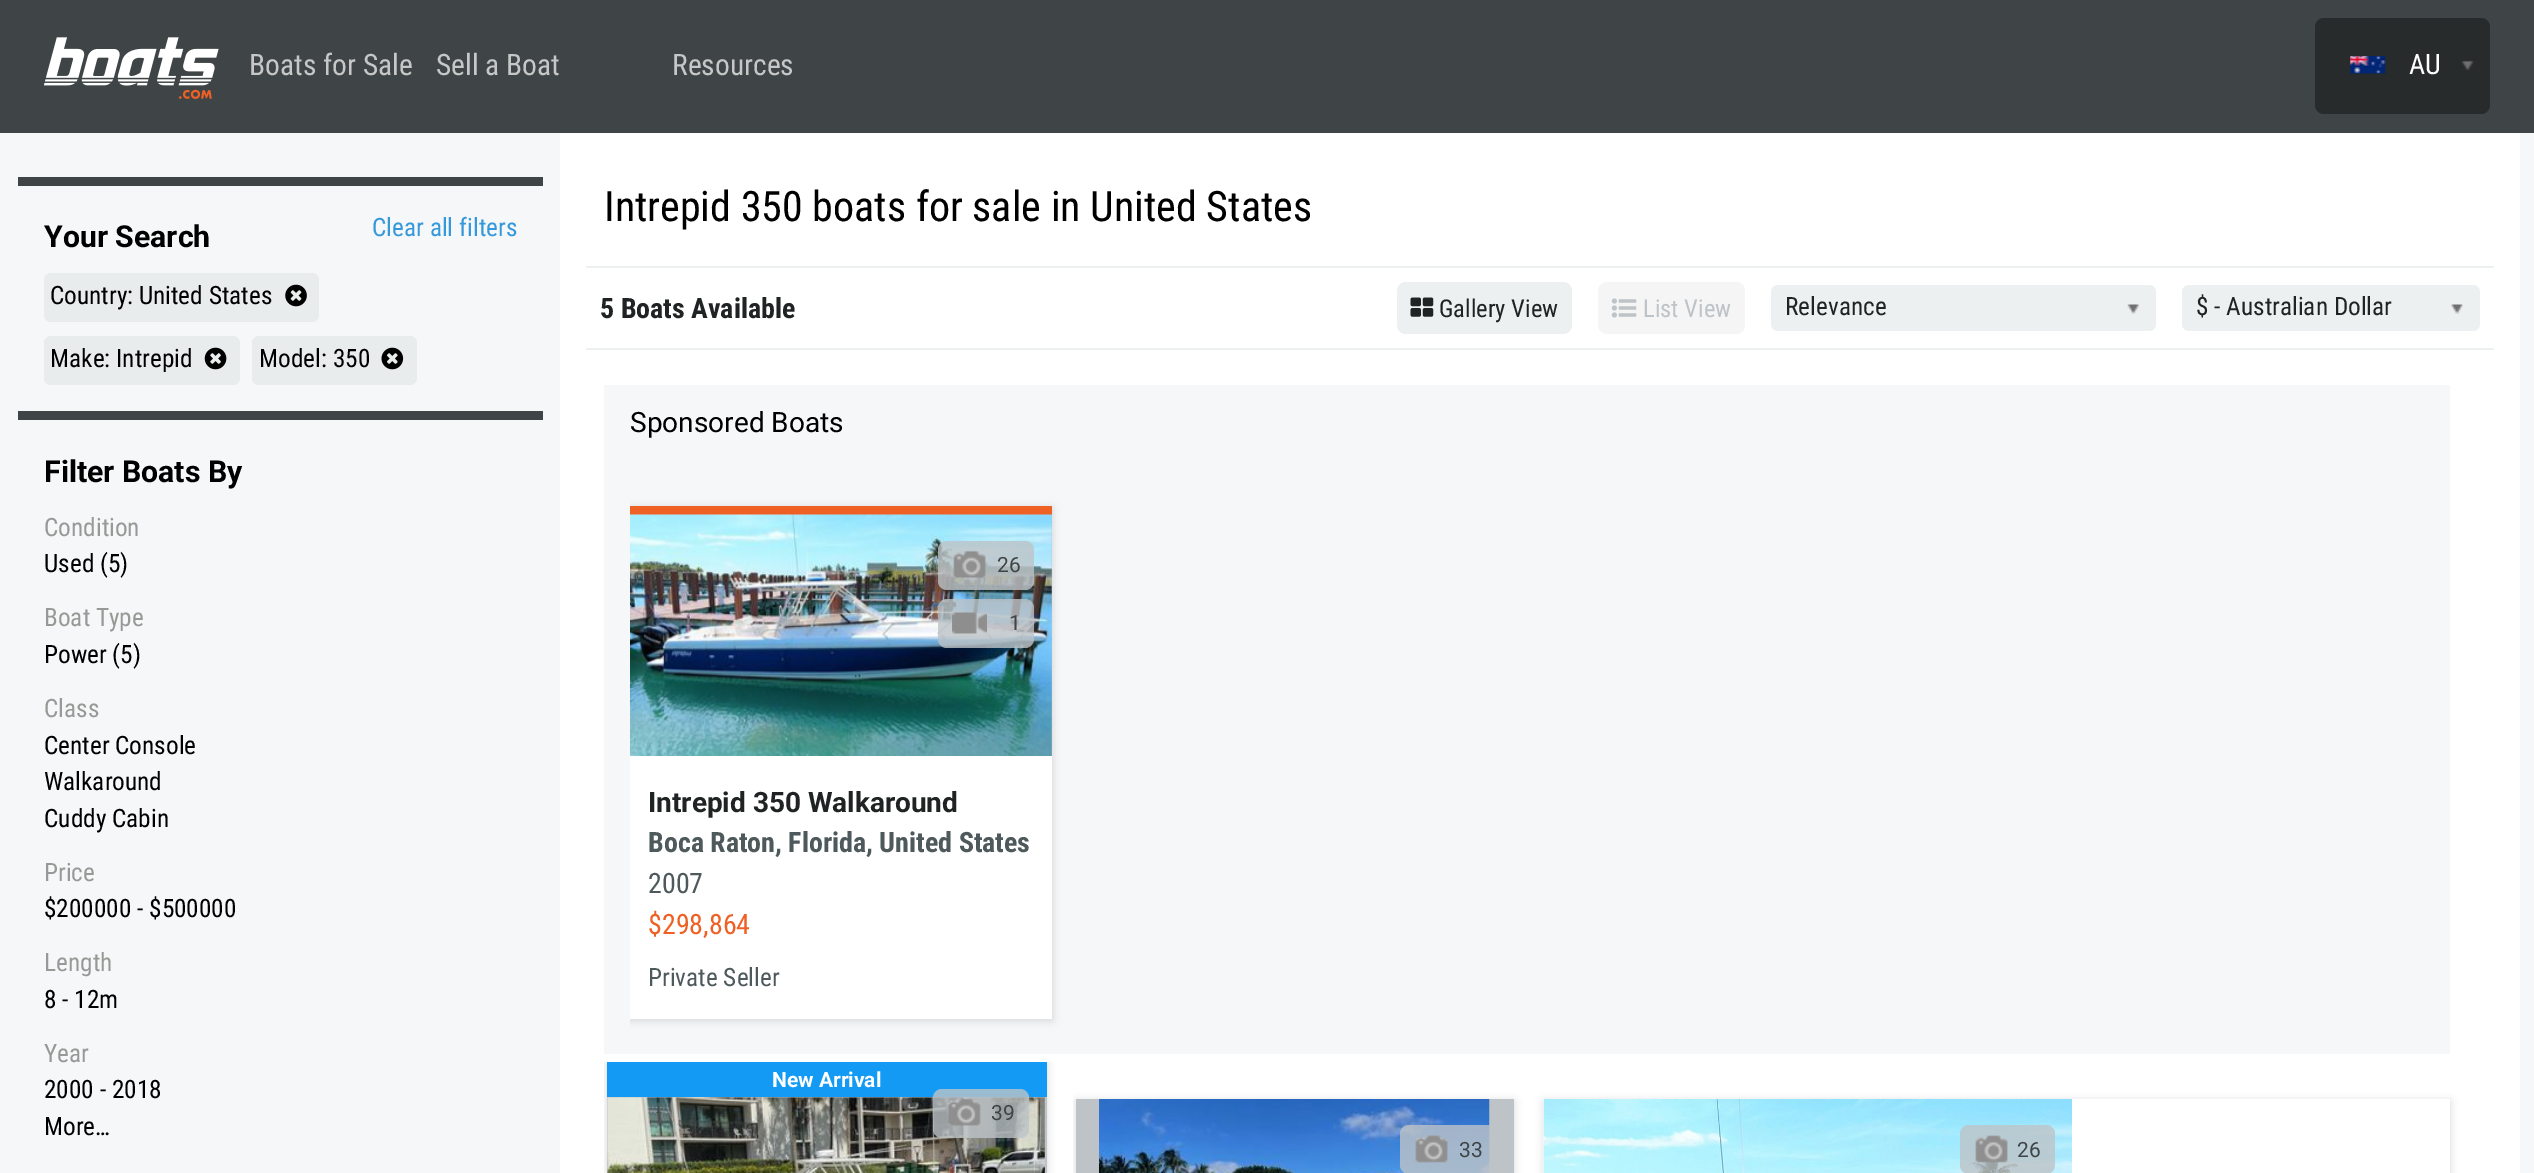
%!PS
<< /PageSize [2534 1173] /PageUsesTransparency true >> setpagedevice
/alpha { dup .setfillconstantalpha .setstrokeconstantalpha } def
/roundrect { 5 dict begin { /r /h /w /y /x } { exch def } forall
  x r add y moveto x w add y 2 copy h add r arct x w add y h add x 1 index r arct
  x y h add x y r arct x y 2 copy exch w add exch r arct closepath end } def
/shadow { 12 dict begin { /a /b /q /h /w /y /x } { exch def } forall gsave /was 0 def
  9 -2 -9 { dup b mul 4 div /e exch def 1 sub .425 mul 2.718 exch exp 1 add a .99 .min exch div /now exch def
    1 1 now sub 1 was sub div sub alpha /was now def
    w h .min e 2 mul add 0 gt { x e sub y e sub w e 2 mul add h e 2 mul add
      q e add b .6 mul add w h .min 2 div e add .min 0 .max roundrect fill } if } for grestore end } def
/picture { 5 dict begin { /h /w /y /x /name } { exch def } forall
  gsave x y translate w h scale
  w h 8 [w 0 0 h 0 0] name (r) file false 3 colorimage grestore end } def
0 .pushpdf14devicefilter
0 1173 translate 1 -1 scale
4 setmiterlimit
0.961 0.969 0.973 setrgbcolor
0 0 2534 1173 rectfill
0.247 0.271 0.275 setrgbcolor
0 0 2534 133 rectfill
(img1.rgb) 44 37 175 62 picture
/RobotoCondensed-Regular [29.5 0 0 -29.5 0 0] selectfont
0.776 0.784 0.784 setrgbcolor
249 75 moveto (Boats for Sale) show
436 75 moveto (Sell a Boat) show
672 75 moveto (Resources) show
0.153 0.169 0.169 setrgbcolor
2315 18 175 96 9 roundrect fill
(img2.rgb) 2350 56 36 18 picture
/RobotoCondensed-Regular [28 0 0 -28 0 0] selectfont
1 setgray
2409 74 moveto (AU) show
(img3.rgb) 2461 60 13 11 picture
0.247 0.271 0.275 setrgbcolor
18 177 525 9 rectfill
/Roboto-Bold [30.25 0 0 -30.25 0 0] selectfont
0 setgray
44 247 moveto (Your Search) show
/RobotoCondensed-Regular [25.25 0 0 -25.25 0 0] selectfont
0.208 0.596 0.859 setrgbcolor
372 236 moveto (Clear all filters) show
0.914 0.925 0.929 setrgbcolor
44 273 275 49 7 roundrect fill
0 setgray
50 304 moveto (Country: United States) show
(img4.rgb) 285 284 22 23 picture
0.914 0.925 0.929 setrgbcolor
44 336 196 49 7 roundrect fill
0 setgray
50 367 moveto (Make: Intrepid) show
(img5.rgb) 204 347 23 23 picture
0.914 0.925 0.929 setrgbcolor
252 336 165 49 7 roundrect fill
0 setgray
259 367 moveto (Model: 350) show
(img6.rgb) 381 347 23 23 picture
0.247 0.271 0.275 setrgbcolor
18 411 525 9 rectfill
/Roboto-Bold [30.25 0 0 -30.25 0 0] selectfont
0 setgray
44 482 moveto (Filter Boats By) show
/RobotoCondensed-Regular [25.25 0 0 -25.25 0 0] selectfont
0.592 0.6 0.592 setrgbcolor
44 536 moveto (Condition) show
0 setgray
44 572 moveto (Used \(5\)) show
0.592 0.6 0.592 setrgbcolor
44 626 moveto (Boat Type) show
0 setgray
44 663 moveto (Power \(5\)) show
0.592 0.6 0.592 setrgbcolor
44 717 moveto (Class) show
0 setgray
44 754 moveto (Center Console) show
44 790 moveto (Walkaround) show
44 827 moveto (Cuddy Cabin) show
0.592 0.6 0.592 setrgbcolor
44 881 moveto (Price) show
0 setgray
44 917 moveto ($200000 - $500000) show
0.592 0.6 0.592 setrgbcolor
44 971 moveto (Length) show
0 setgray
44 1008 moveto (8 - 12m) show
0.592 0.6 0.592 setrgbcolor
44 1062 moveto (Year) show
0 setgray
44 1098 moveto (2000 - 2018) show
44 1135 moveto (More…) show
1 setgray
560 133 1960 1040 rectfill
/RobotoCondensed-Regular [42 0 0 -42 0 0] selectfont
0 setgray
604 221 moveto (Intrepid 350 boats for sale in United States) show
0.925 0.941 0.945 setrgbcolor
586 266 1908 2 rectfill
586 348 1908 2 rectfill
/RobotoCondensed-Bold [28 0 0 -28 0 0] selectfont
0.125 0.137 0.137 setrgbcolor
600 318 moveto (5 Boats Available) show
0.925 0.941 0.945 setrgbcolor
1397 282 175 52 9 roundrect fill
(img7.rgb) 1410 297 24 20 picture
/RobotoCondensed-Regular [24.5 0 0 -24.5 0 0] selectfont
0.125 0.137 0.137 setrgbcolor
1439 317 moveto (Gallery View) show
0.961 setgray
1598 282 147 52 9 roundrect fill
(img8.rgb) 1611 298 26 20 picture
0.741 0.765 0.78 setrgbcolor
1643 317 moveto (List View) show
0.925 0.941 0.945 setrgbcolor
1771 285 385 46 7 roundrect fill
/RobotoCondensed-Regular [25.25 0 0 -25.25 0 0] selectfont
0.125 0.137 0.137 setrgbcolor
1785 315 moveto (Relevance) show
(img9.rgb) 2127 304 12 10 picture
0.925 0.941 0.945 setrgbcolor
2182 285 298 46 7 roundrect fill
0.125 0.137 0.137 setrgbcolor
2196 315 moveto ($ - Australian Dollar) show
(img10.rgb) 2451 304 12 10 picture
0.961 0.969 0.973 setrgbcolor
604 385 1846 669 rectfill
/Roboto-Regular [28 0 0 -28 0 0] selectfont
0 setgray
630 432 moveto (Sponsored Boats) show
gsave
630 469 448 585 rectclip
630 508 422 512 0 4.5 0.15 shadow
grestore
0.937 0.376 0.141 setrgbcolor
630 506 422 9 rectfill
(img11.rgb) 630 514 422 242 picture
0.8 alpha
0.741 0.765 0.78 setrgbcolor
938 541 96 49 9 roundrect fill
1 alpha
(img12.rgb) 953 550 33 28 picture
/Roboto-Regular [21 0 0 -21 0 0] selectfont
0.247 0.271 0.275 setrgbcolor
997 572 moveto (26) show
0.8 alpha
0.741 0.765 0.78 setrgbcolor
938 599 96 49 9 roundrect fill
1 alpha
(img13.rgb) 952 612 35 22 picture
0.247 0.271 0.275 setrgbcolor
1009 630 moveto (1) show
1 setgray
630 756 422 263 rectfill
/Roboto-Bold [28 0 0 -28 0 0] selectfont
0.125 0.137 0.137 setrgbcolor
648 812 moveto (Intrepid 350 Walkaround) show
/RobotoCondensed-Bold [28 0 0 -28 0 0] selectfont
0.306 0.349 0.361 setrgbcolor
648 852 moveto (Boca Raton, Florida, United States) show
/RobotoCondensed-Regular [28 0 0 -28 0 0] selectfont
648 893 moveto (2007) show
0.937 0.376 0.141 setrgbcolor
648 934 moveto ($298,864) show
/RobotoCondensed-Regular [25.25 0 0 -25.25 0 0] selectfont
0.306 0.349 0.361 setrgbcolor
648 986 moveto (Private Seller) show
gsave
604 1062 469 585 rectclip
0 setgray
607 1064 440 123 0 4.5 0.15 shadow
grestore
0.075 0.604 0.961 setrgbcolor
607 1062 440 35 rectfill
/Roboto-Bold [21 0 0 -21 0 0] selectfont
1 setgray
772 1087 moveto (New Arrival) show
0.741 0.765 0.78 setrgbcolor
607 1097 440 76 rectfill
(img14.rgb) 607 1097 438 76 picture
0.8 alpha
933 1089 96 49 9 roundrect fill
1 alpha
(img15.rgb) 948 1098 33 28 picture
/Roboto-Regular [21 0 0 -21 0 0] selectfont
0.247 0.271 0.275 setrgbcolor
991 1120 moveto (39) show
gsave
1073 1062 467 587 rectclip
0 setgray
1076 1101 438 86 0 4.5 0.15 shadow
grestore
0.741 0.765 0.78 setrgbcolor
1076 1099 438 74 rectfill
(img16.rgb) 1099 1099 391 74 picture
0.8 alpha
1400 1125 96 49 9 roundrect fill
1 alpha
(img17.rgb) 1415 1135 33 28 picture
0.247 0.271 0.275 setrgbcolor
1459 1157 moveto (33) show
gsave
newpath 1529 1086 moveto 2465 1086 lineto 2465 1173 lineto 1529 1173 lineto closepath 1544 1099 moveto 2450 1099 lineto 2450 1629 lineto 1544 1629 lineto closepath eoclip newpath
0 setgray
1544 1101 906 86 0 4.5 0.15 shadow
grestore
(img18.rgb) 1543 1099 529 74 picture
0.8 alpha
0.741 0.765 0.78 setrgbcolor
1960 1125 95 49 9 roundrect fill
1 alpha
(img19.rgb) 1975 1135 33 28 picture
0.247 0.271 0.275 setrgbcolor
2017 1157 moveto (26) show
.poppdf14devicefilter showpage
